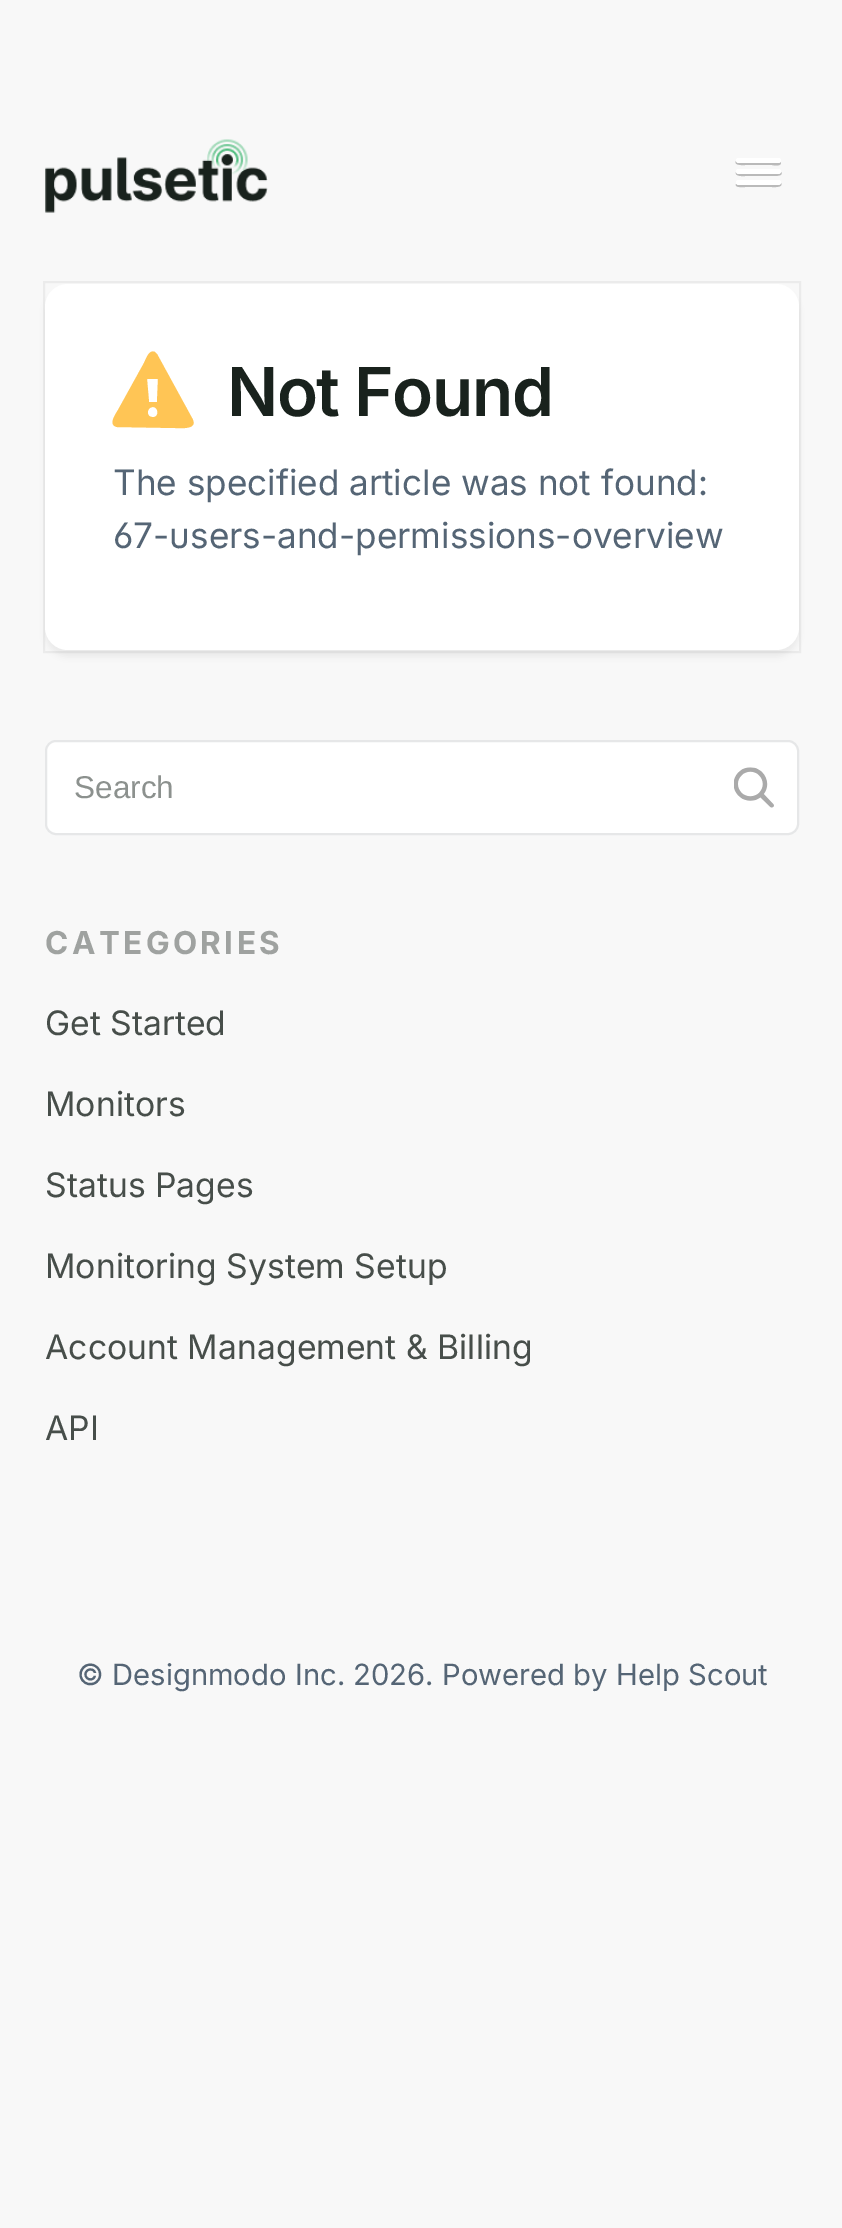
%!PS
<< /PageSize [842 2228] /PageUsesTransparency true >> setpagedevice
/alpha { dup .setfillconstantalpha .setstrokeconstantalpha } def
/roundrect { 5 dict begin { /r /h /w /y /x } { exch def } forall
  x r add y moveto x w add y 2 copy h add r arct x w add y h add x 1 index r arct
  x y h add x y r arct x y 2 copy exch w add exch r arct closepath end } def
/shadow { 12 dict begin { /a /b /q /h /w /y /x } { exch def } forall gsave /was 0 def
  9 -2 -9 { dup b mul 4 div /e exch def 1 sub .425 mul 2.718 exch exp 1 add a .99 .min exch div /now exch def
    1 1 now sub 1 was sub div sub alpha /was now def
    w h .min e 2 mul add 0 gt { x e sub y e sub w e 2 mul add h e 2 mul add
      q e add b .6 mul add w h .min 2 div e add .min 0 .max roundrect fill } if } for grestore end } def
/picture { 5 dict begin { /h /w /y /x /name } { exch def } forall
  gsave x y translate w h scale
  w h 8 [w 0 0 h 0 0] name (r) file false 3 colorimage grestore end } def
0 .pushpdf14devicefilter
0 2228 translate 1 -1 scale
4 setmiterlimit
0.973 setgray
0 0 842 2228 rectfill
(img1.rgb) 45 139 223 74 picture
0.729 setgray
newpath 736 161 moveto 733 166 745 165 745 165 curveto 772 165 lineto 773 165 780 167 781 163 curveto 780 161 lineto 779 163 772 162 772 162 curveto 767 162 738 163 736 161 curveto closepath fill
1 setgray
736 158 45 5 2.5 roundrect fill
0.729 setgray
newpath 736 172 moveto 734 177 745 176 745 176 curveto 772 176 lineto 776 176 784 176 781 172 curveto 779 175 772 173 772 173 curveto 767 173 738 174 736 172 curveto closepath fill
1 setgray
736 169 45 5 2.5 roundrect fill
0.729 setgray
newpath 736 184 moveto 734 188 744 187 745 187 curveto 772 187 lineto 772 187 784 188 781 183 curveto 780 184 779 184 778 184 curveto 738 184 lineto closepath fill
1 setgray
736 180 45 5 2.5 roundrect fill
0 setgray
45 290 754 367 23 3.5 0.05 shadow
0.05 alpha
2 setlinewidth
44 282 756 370 rectstroke
1 alpha
1 setgray
45 284 754 366 23 roundrect fill
1 0.773 0.333 setrgbcolor
newpath 192 418 moveto 157 354 lineto 155 352 lineto 149 349 146 359 144 363 curveto 118 410 lineto 115 415 108 425 117 427 curveto 175 428 lineto 181 428 199 430 192 418 curveto closepath 158 379 moveto 157 402 lineto 149 402 lineto 147 379 lineto closepath 153 417 moveto 146 418 146 407 153 407 curveto 159 407 159 418 153 417 curveto closepath fill
/Inter-SemiBold [67.5 0 0 -67.5 0 0] selectfont
0.098 0.133 0.114 setrgbcolor
227 416 moveto -1.5 0 (Not Found) ashow
/Inter-Regular [35.1 0 0 -35.1 0 0] selectfont
0.333 0.396 0.459 setrgbcolor
113 495 moveto (The specified article was not found:) show
/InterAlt-Regular [35.1 0 0 -35.1 0 0] selectfont
113 548 moveto (67-users-and-permissions-overview) show
1 setgray
46 741 752 93 10 roundrect gsave fill grestore
0.902 0.906 0.91 setrgbcolor
stroke
/LiberationSans-Regular [31.5 0 0 -31.5 0 0] selectfont
0.549 0.569 0.557 setrgbcolor
74 798 moveto (Search) show
(img2.rgb) 734 767 40 41 picture
/Inter-Bold [31.5 0 0 -31.5 0 0] selectfont
0.624 0.635 0.627 setrgbcolor
45 954 moveto 3.4 0 (CATEGORIES) ashow
/Inter-Regular [33.75 0 0 -33.75 0 0] selectfont
0.278 0.306 0.29 setrgbcolor
45 1035 moveto (Get Started) show
45 1116 moveto (Monitors) show
45 1197 moveto (Status Pages) show
45 1278 moveto (Monitoring System Setup) show
45 1359 moveto (Account Management & Billing) show
45 1440 moveto (API) show
/Inter-Regular [29.25 0 0 -29.25 0 0] selectfont
0.333 0.396 0.459 setrgbcolor
77 1685 moveto (© Designmodo Inc. 2026. Powered by Help Scout) show
.poppdf14devicefilter showpage
